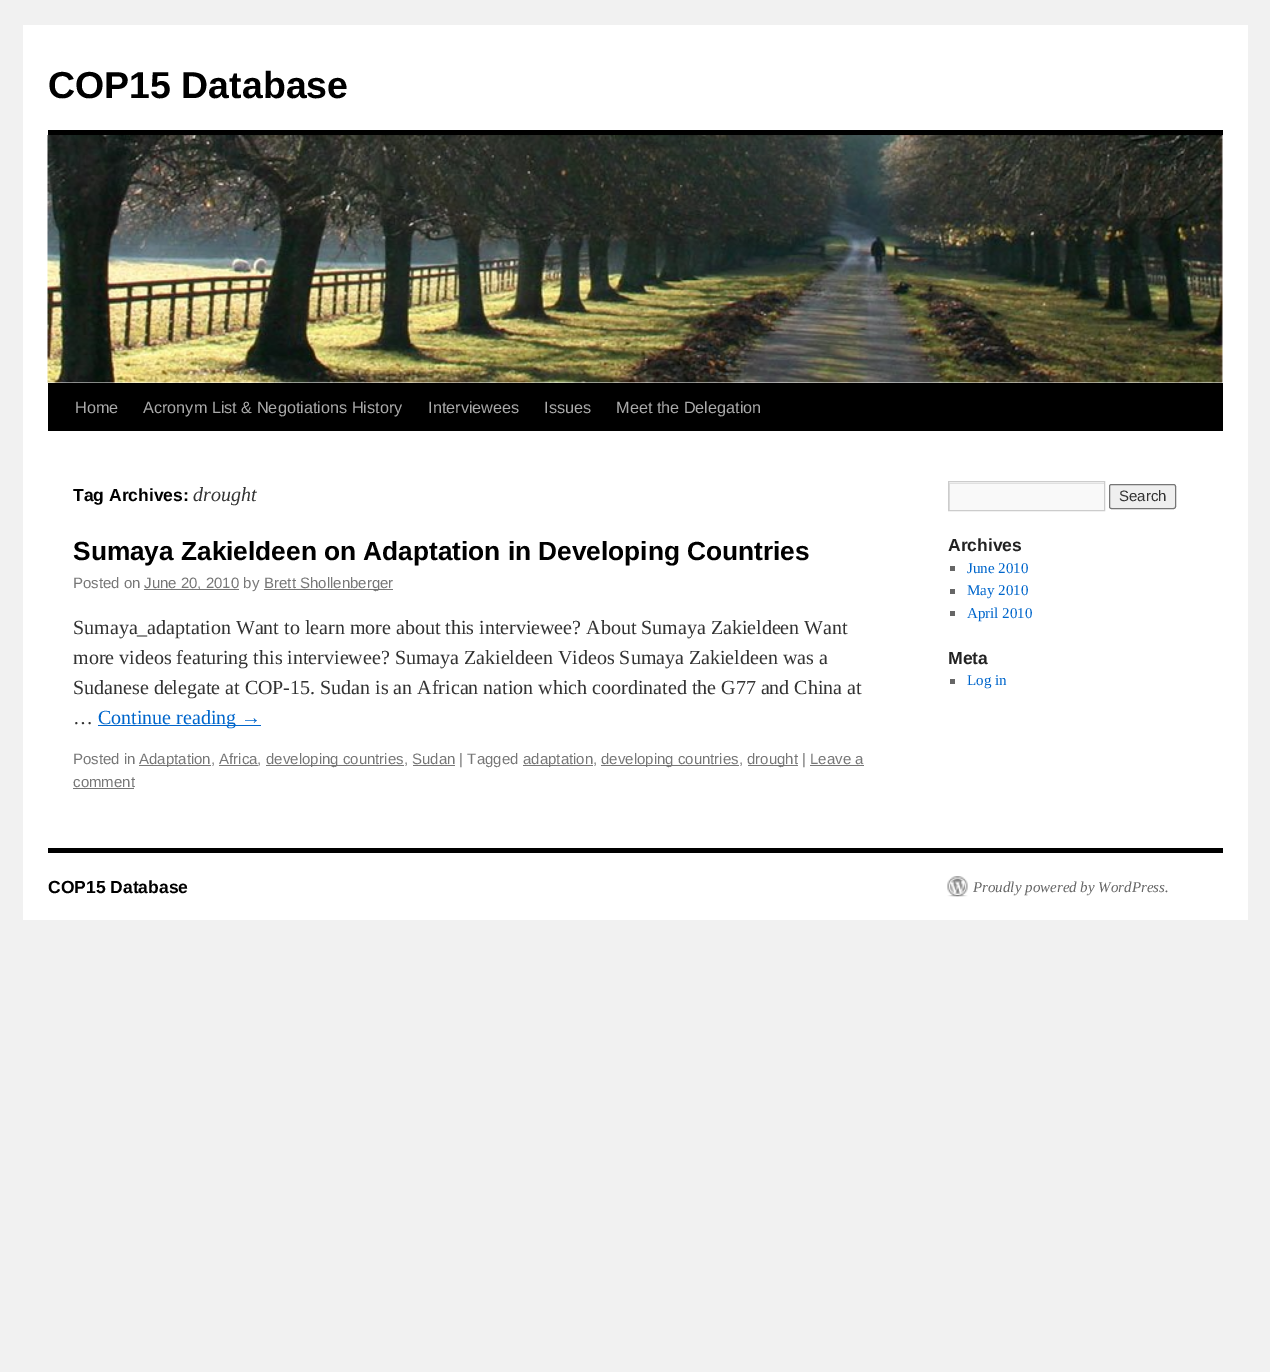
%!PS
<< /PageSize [1270 1372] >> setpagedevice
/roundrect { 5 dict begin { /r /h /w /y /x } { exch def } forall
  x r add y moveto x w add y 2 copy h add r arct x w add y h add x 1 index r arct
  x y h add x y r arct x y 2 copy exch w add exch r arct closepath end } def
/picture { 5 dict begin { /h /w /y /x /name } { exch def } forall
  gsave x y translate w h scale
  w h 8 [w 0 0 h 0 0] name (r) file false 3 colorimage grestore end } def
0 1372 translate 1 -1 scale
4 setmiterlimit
0.945 setgray
0 0 1270 1372 rectfill
1 setgray
23 25 1225 895 rectfill
/LiberationSans-Bold [37.5 0 0 -37.5 0 0] selectfont
0 setgray
48 98 moveto (COP15 Database) show
48 130 1175 5 rectfill
48 383 1175 48 rectfill
(img1.rgb) 47 135 1176 248 picture
/LiberationSans-Regular [16.25 0 0 -16.25 0 0] selectfont
0.667 setgray
75 413 moveto (Home) show
143 413 moveto (Acronym List & Negotiations History) show
428 413 moveto (Interviewees) show
544 413 moveto (Issues) show
616 413 moveto (Meet the Delegation) show
/LiberationSans-Bold [17.5 0 0 -17.5 0 0] selectfont
0 setgray
73 501 moveto (Tag Archives:) show
/LiberationSerif-Italic [20 0 0 -20 0 0] selectfont
0.2 setgray
193 501 moveto (drought) show
/LiberationSans-Bold [26.25 0 0 -26.25 0 0] selectfont
0 setgray
73 560 moveto (Sumaya Zakieldeen on Adaptation in Developing Countries) show
/LiberationSans-Regular [15 0 0 -15 0 0] selectfont
0.467 setgray
73 588 moveto (Posted on) show
144 589 95 1 rectfill
144 588 moveto (June 20, 2010 by) show
264 589 129 1 rectfill
264 588 moveto (Brett Shollenberger) show
/LiberationSerif-Regular [20 0 0 -20 0 0] selectfont
0.2 setgray
73 634 moveto (Sumaya_adaptation Want to learn more about this interviewee? About Sumaya Zakieldeen Want) show
73 664 moveto (more videos featuring this interviewee? Sumaya Zakieldeen Videos Sumaya Zakieldeen was a) show
73 694 moveto (Sudanese delegate at COP-15. Sudan is an African nation which coordinated the G77 and China at) show
73 724 moveto (…) show
0 0.4 0.8 setrgbcolor
98 725 163 1 rectfill
98 724 moveto (Continue reading →) show
/LiberationSans-Regular [15 0 0 -15 0 0] selectfont
0.467 setgray
73 764 moveto (Posted in) show
139 765 72 1 rectfill
139 764 moveto (Adaptation, Africa,) show
219 765 39 1 rectfill
266 765 138 1 rectfill
266 764 moveto (developing countries, Sudan | Tagged) show
413 765 42 1 rectfill
523 765 70 1 rectfill
523 764 moveto (adaptation,) show
601 765 138 1 rectfill
601 764 moveto (developing countries,) show
748 765 50 1 rectfill
747 764 moveto (drought | Leave a) show
73 787 moveto (comment) show
810 765 54 1 rectfill
73 788 61 1 rectfill
0.976 setgray
949 482 155 28 rectfill
gsave
949 483 155 27 rectclip
0.878 setgray
newpath 825 359 moveto 1228 359 lineto 1228 634 lineto 825 634 lineto closepath 950 484 moveto 1105 484 lineto 1105 511 lineto 950 511 lineto closepath eofill
grestore
0.8 setgray
948.5 481.5 156 29 rectstroke
0.937 setgray
1109.5 484.5 66 24 2 roundrect gsave fill grestore
0.463 setgray
stroke
0.2 setgray
1119 501 moveto (Search) show
/LiberationSans-Bold [17.5 0 0 -17.5 0 0] selectfont
0.133 setgray
948 551 moveto (Archives) show
0.4 setgray
950 566 5 5 rectfill
/LiberationSerif-Regular [15 0 0 -15 0 0] selectfont
0 0.4 0.8 setrgbcolor
967 573 moveto (June 2010) show
0.4 setgray
950 589 5 5 rectfill
0 0.4 0.8 setrgbcolor
967 595 moveto (May 2010) show
0.4 setgray
950 611 5 5 rectfill
0 0.4 0.8 setrgbcolor
967 618 moveto (April 2010) show
/LiberationSans-Bold [17.5 0 0 -17.5 0 0] selectfont
0.133 setgray
948 664 moveto (Meta) show
0.4 setgray
950 679 5 5 rectfill
/LiberationSerif-Regular [15 0 0 -15 0 0] selectfont
0 0.4 0.8 setrgbcolor
967 685 moveto (Log in) show
0 setgray
48 848 1175 5 rectfill
/LiberationSans-Bold [17.5 0 0 -17.5 0 0] selectfont
48 893 moveto (COP15 Database) show
(img2.rgb) 947 876 21 21 picture
/LiberationSerif-Italic [15 0 0 -15 0 0] selectfont
0.4 setgray
973 892 moveto (Proudly powered by WordPress.) show
showpage
